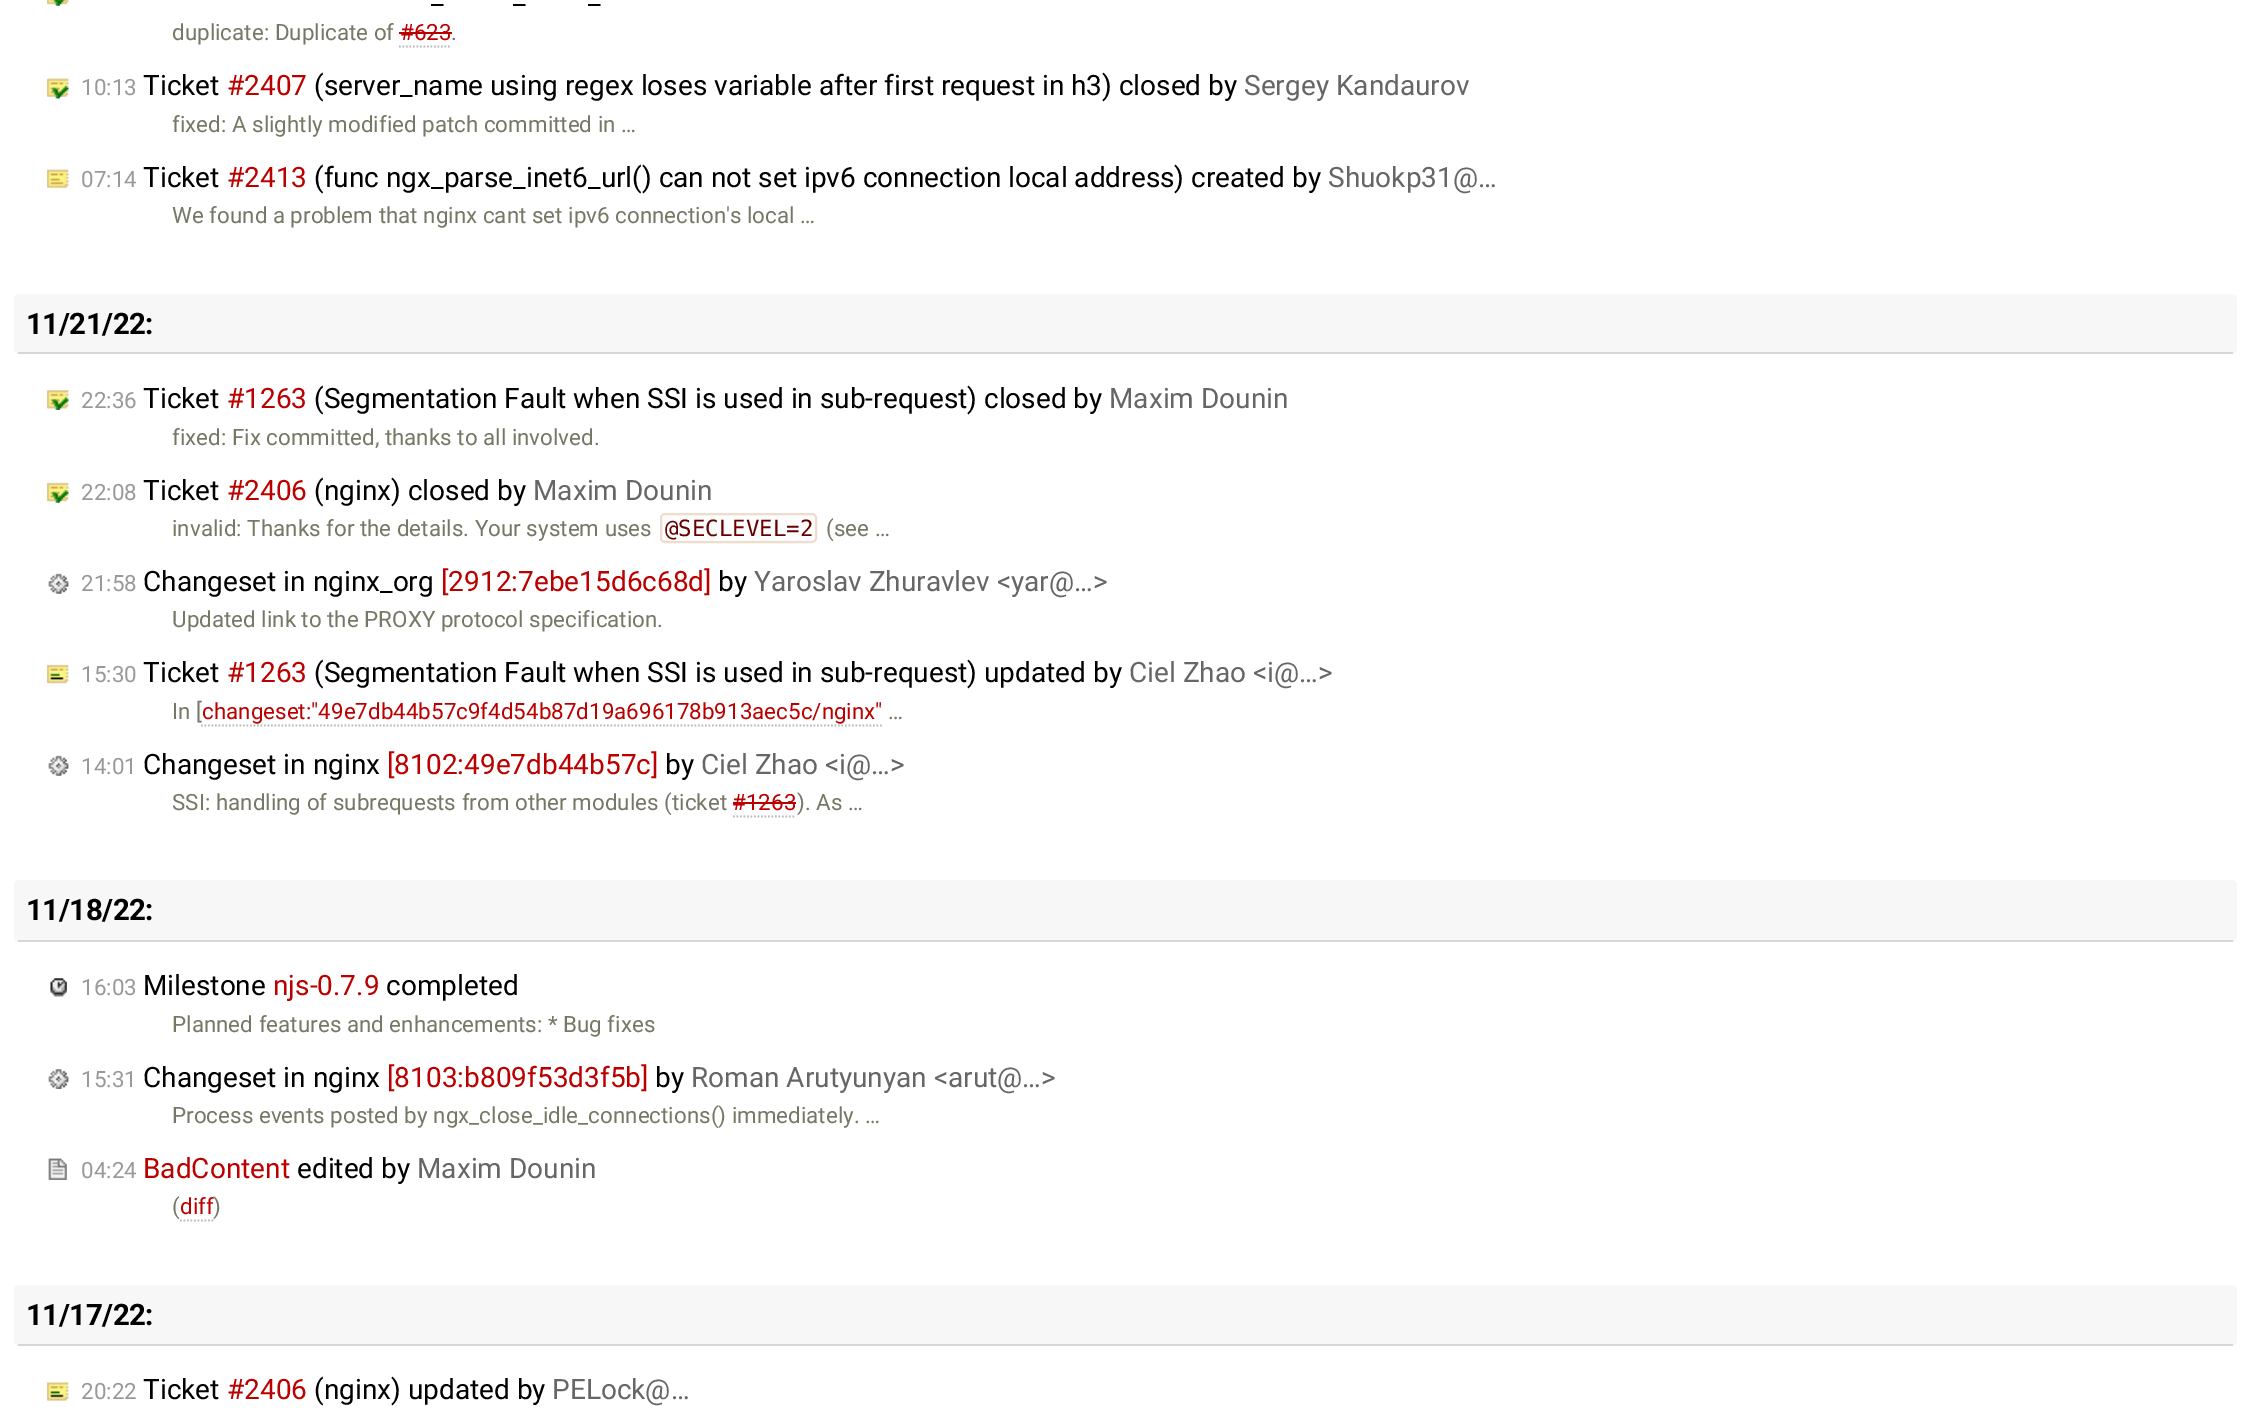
%!PS
<< /PageSize [2250 1417] >> setpagedevice
/roundrect { 5 dict begin { /r /h /w /y /x } { exch def } forall
  x r add y moveto x w add y 2 copy h add r arct x w add y h add x 1 index r arct
  x y h add x y r arct x y 2 copy exch w add exch r arct closepath end } def
/picture { 5 dict begin { /h /w /y /x /name } { exch def } forall
  gsave x y translate w h scale
  w h 8 [w 0 0 h 0 0] name (r) file false 3 colorimage grestore end } def
0 1417 translate 1 -1 scale
4 setmiterlimit
1 setgray
0 0 2250 1417 rectfill
(img1.rgb) 47 0 22 6 picture
(img2.rgb) 47 0 22 6 picture
/Roboto-Regular [28 0 0 -28 0 0] selectfont
0 setgray
431 4 moveto (_) show
513 4 moveto (_) show
588 4 moveto (_) show
/Roboto-Regular [22.4 0 0 -22.4 0 0] selectfont
0.467 0.467 0.4 setrgbcolor
172 40 moveto (duplicate: Duplicate of) show
0.733 0 0 setrgbcolor
400 40 moveto (#623) show
0.733 setgray
1.8 setlinewidth
[1.75 1.75] 0 setdash
newpath 399 46.5 moveto 451.5 46.5 lineto stroke
0.733 0 0 setrgbcolor
399 32 53 2 rectfill
0.467 0.467 0.4 setrgbcolor
451 40 moveto (.) show
(img3.rgb) 47 78 22 21 picture
(img4.rgb) 47 78 22 21 picture
0.6 setgray
81 95 moveto (10:13) show
/Roboto-Regular [28 0 0 -28 0 0] selectfont
0 setgray
143 95 moveto (Ticket) show
0.733 0 0 setrgbcolor
227 95 moveto (#2407) show
0 setgray
314 95 moveto (\(server_name using regex loses variable after first request in h3\) closed by) show
0.4 setgray
1244 95 moveto (Sergey Kandaurov) show
/Roboto-Regular [22.4 0 0 -22.4 0 0] selectfont
0.467 0.467 0.4 setrgbcolor
172 132 moveto (fixed: A slightly modified patch committed in …) show
(img5.rgb) 47 169 22 19 picture
(img6.rgb) 47 169 22 19 picture
0.6 setgray
81 187 moveto (07:14) show
/Roboto-Regular [28 0 0 -28 0 0] selectfont
0 setgray
143 187 moveto (Ticket) show
0.733 0 0 setrgbcolor
227 187 moveto (#2413) show
0 setgray
314 187 moveto (\(func ngx_parse_inet6_url\(\) can not set ipv6 connection local address\) created by) show
0.4 setgray
1328 187 moveto (Shuokp31@…) show
/Roboto-Regular [22.4 0 0 -22.4 0 0] selectfont
0.467 0.467 0.4 setrgbcolor
172 223 moveto (We found a problem that nginx cant set ipv6 connection's local …) show
0.969 setgray
14 294 2223 60 5 roundrect fill
0.843 setgray
18 352 2215 2 rectfill
/Roboto-Bold [29.5 0 0 -29.5 0 0] selectfont
0 setgray
26 334 moveto -0.5 0 (11/21/22:) ashow
(img7.rgb) 47 390 22 20 picture
(img8.rgb) 47 390 22 20 picture
/Roboto-Regular [22.4 0 0 -22.4 0 0] selectfont
0.6 setgray
81 408 moveto (22:36) show
/Roboto-Regular [28 0 0 -28 0 0] selectfont
0 setgray
143 408 moveto (Ticket) show
0.733 0 0 setrgbcolor
227 408 moveto (#1263) show
0 setgray
314 408 moveto (\(Segmentation Fault when SSI is used in sub-request\) closed by) show
0.4 setgray
1109 408 moveto (Maxim Dounin) show
/Roboto-Regular [22.4 0 0 -22.4 0 0] selectfont
0.467 0.467 0.4 setrgbcolor
172 445 moveto (fixed: Fix committed, thanks to all involved.) show
(img9.rgb) 47 482 22 21 picture
(img10.rgb) 47 482 22 21 picture
0.6 setgray
81 500 moveto (22:08) show
/Roboto-Regular [28 0 0 -28 0 0] selectfont
0 setgray
143 500 moveto (Ticket) show
0.733 0 0 setrgbcolor
227 500 moveto (#2406) show
0 setgray
314 500 moveto (\(nginx\) closed by) show
0.4 setgray
533 500 moveto (Maxim Dounin) show
/Roboto-Regular [22.4 0 0 -22.4 0 0] selectfont
0.467 0.467 0.4 setrgbcolor
172 536 moveto (invalid: Thanks for the details. Your system uses) show
0.988 setgray
661 514 155 28 4 roundrect gsave fill grestore
0.933 0.867 0.8 setrgbcolor
2 setlinewidth
[] 0 setdash
stroke
/DejaVuSansMono-Regular [22.4 0 0 -22.4 0 0] selectfont
0.4 0 0 setrgbcolor
665 536 moveto (@SECLEVEL=2) show
/Roboto-Regular [22.4 0 0 -22.4 0 0] selectfont
0.467 0.467 0.4 setrgbcolor
826 536 moveto (\(see …) show
(img11.rgb) 48 573 21 21 picture
(img12.rgb) 48 573 21 21 picture
0.6 setgray
81 591 moveto (21:58) show
/Roboto-Regular [28 0 0 -28 0 0] selectfont
0 setgray
143 591 moveto (Changeset in nginx_org) show
0.733 0 0 setrgbcolor
441 591 moveto ([2912:7ebe15d6c68d]) show
0 setgray
718 591 moveto (by) show
0.4 setgray
754 591 moveto (Yaroslav Zhuravlev <yar@…>) show
/Roboto-Regular [22.4 0 0 -22.4 0 0] selectfont
0.467 0.467 0.4 setrgbcolor
172 627 moveto (Updated link to the PROXY protocol specification.) show
(img13.rgb) 47 664 22 20 picture
(img14.rgb) 47 664 22 20 picture
0.6 setgray
81 682 moveto (15:30) show
/Roboto-Regular [28 0 0 -28 0 0] selectfont
0 setgray
143 682 moveto (Ticket) show
0.733 0 0 setrgbcolor
227 682 moveto (#1263) show
0 setgray
314 682 moveto (\(Segmentation Fault when SSI is used in sub-request\) updated by) show
0.4 setgray
1129 682 moveto (Ciel Zhao <i@…>) show
/Roboto-Regular [22.4 0 0 -22.4 0 0] selectfont
0.467 0.467 0.4 setrgbcolor
172 719 moveto (In [) show
0.733 0 0 setrgbcolor
202 719 moveto (changeset:"49e7db44b57c9f4d54b87d19a696178b913aec5c/nginx") show
0.733 setgray
1.8 setlinewidth
[1.75 1.75] 0 setdash
newpath 201 725.5 moveto 882 725.5 lineto stroke
0.467 0.467 0.4 setrgbcolor
888 719 moveto (…) show
(img11.rgb) 48 755 21 21 picture
(img12.rgb) 48 755 21 21 picture
0.6 setgray
81 774 moveto (14:01) show
/Roboto-Regular [28 0 0 -28 0 0] selectfont
0 setgray
143 774 moveto (Changeset in nginx) show
0.733 0 0 setrgbcolor
387 774 moveto ([8102:49e7db44b57c]) show
0 setgray
665 774 moveto (by) show
0.4 setgray
701 774 moveto (Ciel Zhao <i@…>) show
/Roboto-Regular [22.4 0 0 -22.4 0 0] selectfont
0.467 0.467 0.4 setrgbcolor
172 810 moveto (SSI: handling of subrequests from other modules \(ticket) show
0.733 0 0 setrgbcolor
732 810 moveto (#1263) show
0.733 setgray
newpath 733 816.5 moveto 796 816.5 lineto stroke
0.733 0 0 setrgbcolor
733 802 63 2 rectfill
0.467 0.467 0.4 setrgbcolor
797 810 moveto (\). As …) show
0.969 setgray
14 880 2223 62 5 roundrect fill
0.843 setgray
18 940 2215 2 rectfill
/Roboto-Bold [29.5 0 0 -29.5 0 0] selectfont
0 setgray
26 920 moveto -0.5 0 (11/18/22:) ashow
(img15.rgb) 50 978 17 19 picture
(img16.rgb) 50 978 17 19 picture
/Roboto-Regular [22.4 0 0 -22.4 0 0] selectfont
0.6 setgray
81 995 moveto (16:03) show
/Roboto-Regular [28 0 0 -28 0 0] selectfont
0 setgray
143 995 moveto (Milestone) show
0.733 0 0 setrgbcolor
273 995 moveto (njs-0.7.9) show
0 setgray
386 995 moveto (completed) show
/Roboto-Regular [22.4 0 0 -22.4 0 0] selectfont
0.467 0.467 0.4 setrgbcolor
172 1032 moveto (Planned features and enhancements: * Bug fixes) show
(img17.rgb) 48 1069 21 20 picture
(img18.rgb) 48 1069 21 20 picture
0.6 setgray
81 1087 moveto (15:31) show
/Roboto-Regular [28 0 0 -28 0 0] selectfont
0 setgray
143 1087 moveto (Changeset in nginx) show
0.733 0 0 setrgbcolor
387 1087 moveto ([8103:b809f53d3f5b]) show
0 setgray
655 1087 moveto (by) show
0.4 setgray
691 1087 moveto (Roman Arutyunyan <arut@…>) show
/Roboto-Regular [22.4 0 0 -22.4 0 0] selectfont
0.467 0.467 0.4 setrgbcolor
172 1123 moveto (Process events posted by ngx_close_idle_connections\(\) immediately. …) show
(img19.rgb) 48 1158 19 22 picture
(img20.rgb) 48 1158 19 22 picture
0.6 setgray
81 1178 moveto (04:24) show
/Roboto-Regular [28 0 0 -28 0 0] selectfont
0.733 0 0 setrgbcolor
143 1178 moveto (BadContent) show
0 setgray
297 1178 moveto (edited by) show
0.4 setgray
417 1178 moveto (Maxim Dounin) show
/Roboto-Regular [22.4 0 0 -22.4 0 0] selectfont
0.467 0.467 0.4 setrgbcolor
172 1214 moveto (\() show
0.733 0 0 setrgbcolor
180 1214 moveto (diff) show
0.733 setgray
newpath 180 1220.5 moveto 213.5 1220.5 lineto stroke
0.467 0.467 0.4 setrgbcolor
213 1214 moveto (\)) show
0.969 setgray
14 1285 2223 61 5 roundrect fill
0.843 setgray
18 1344 2215 2 rectfill
/Roboto-Bold [29.5 0 0 -29.5 0 0] selectfont
0 setgray
26 1325 moveto -0.5 0 (11/17/22:) ashow
(img21.rgb) 47 1382 22 19 picture
(img22.rgb) 47 1382 22 19 picture
/Roboto-Regular [22.4 0 0 -22.4 0 0] selectfont
0.6 setgray
81 1399 moveto (20:22) show
/Roboto-Regular [28 0 0 -28 0 0] selectfont
0 setgray
143 1399 moveto (Ticket) show
0.733 0 0 setrgbcolor
227 1399 moveto (#2406) show
0 setgray
314 1399 moveto (\(nginx\) updated by) show
0.4 setgray
552 1399 moveto (PELock@…) show
showpage
